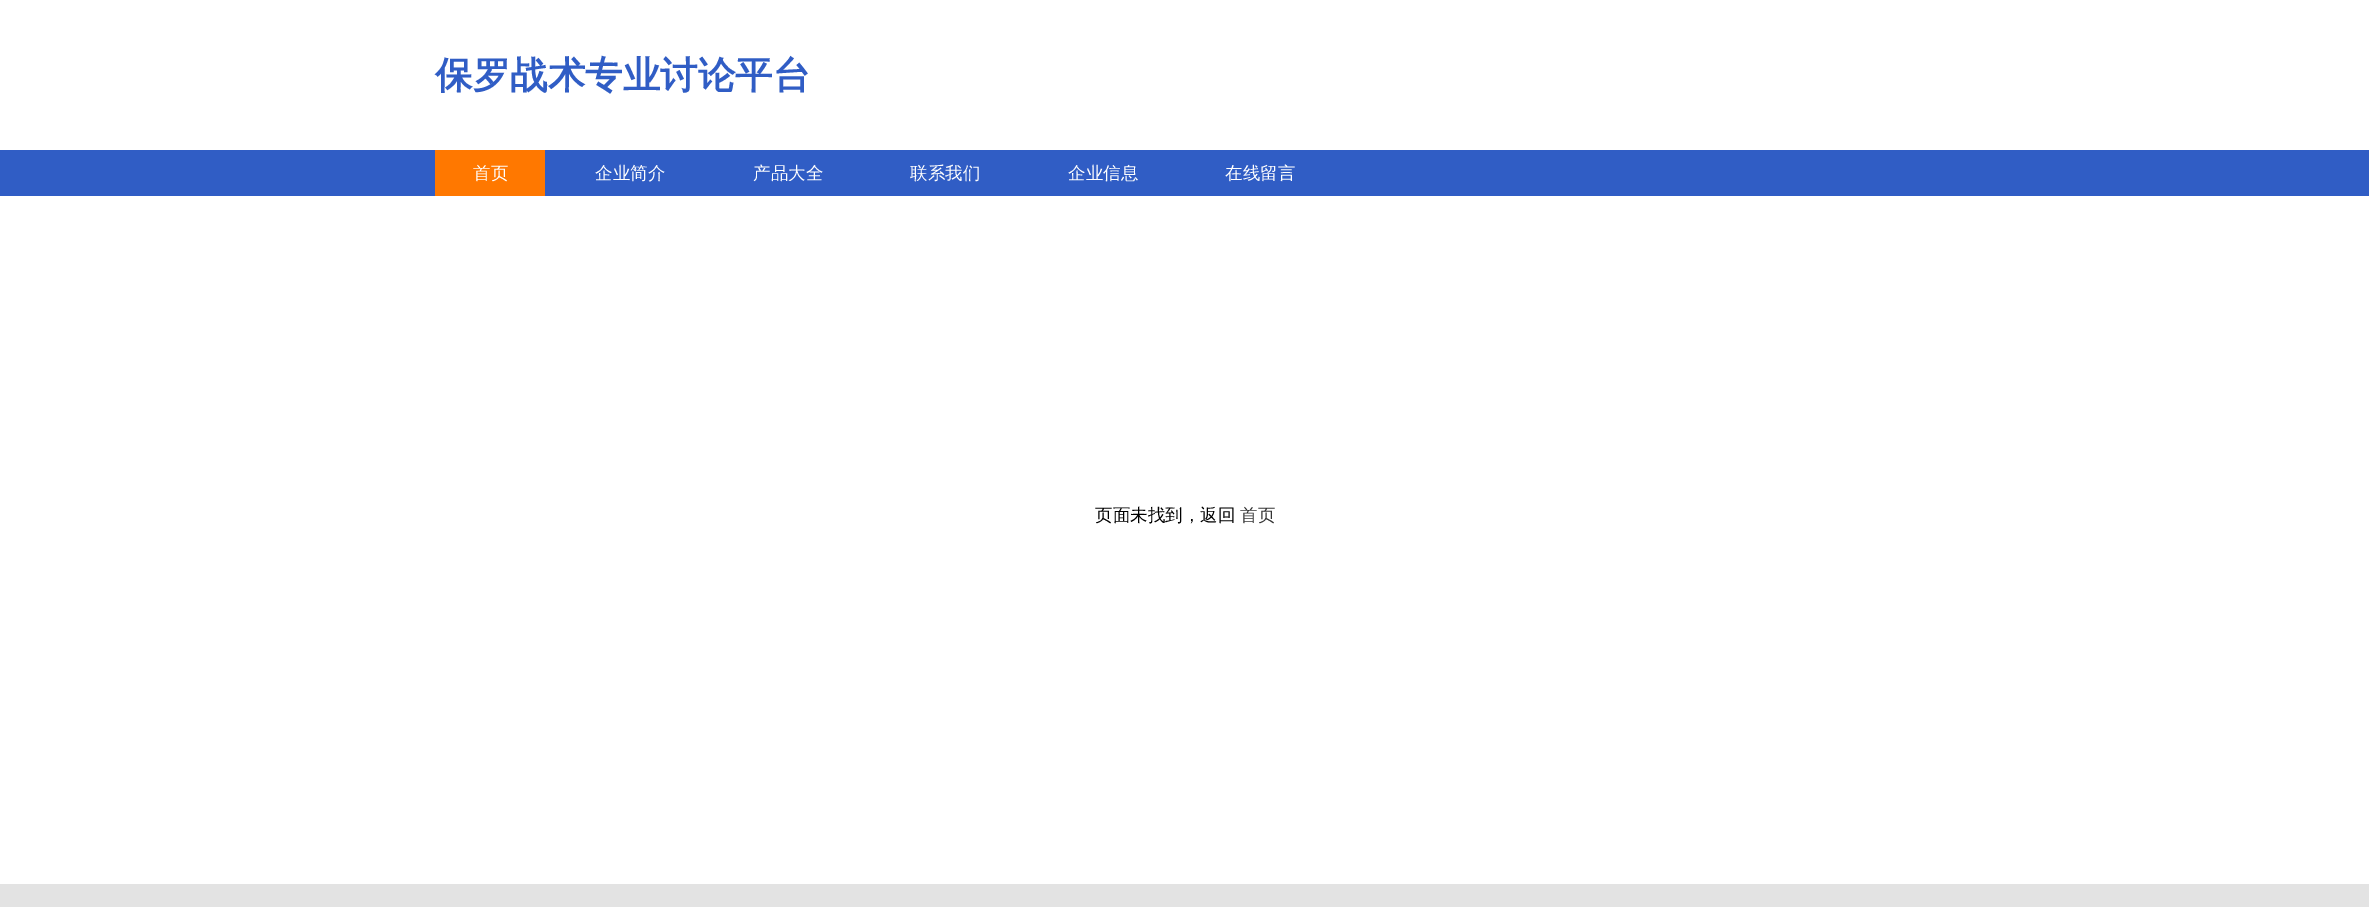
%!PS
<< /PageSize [2369 907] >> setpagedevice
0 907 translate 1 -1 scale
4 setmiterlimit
1 setgray
0 0 2369 907 rectfill
/WenQuanYiZenHei-Bold [37.5 0 0 -37.5 0 0] selectfont
0.188 0.365 0.773 setrgbcolor
435 88 moveto (保罗战术专业讨论平台) show
0 150 2369 46 rectfill
1 0.471 0 setrgbcolor
435 150 110 46 rectfill
/WenQuanYiZenHei-Medium [17.5 0 0 -17.5 0 0] selectfont
1 setgray
473 179 moveto (首页) show
595 179 moveto (企业简介) show
753 179 moveto (产品大全) show
910 179 moveto (联系我们) show
1068 179 moveto (企业信息) show
1225 179 moveto (在线留言) show
0 setgray
1095 521 moveto (页面未找到，返回) show
0.2 setgray
1240 521 moveto (首页) show
0.89 setgray
0 884 2369 23 rectfill
showpage
